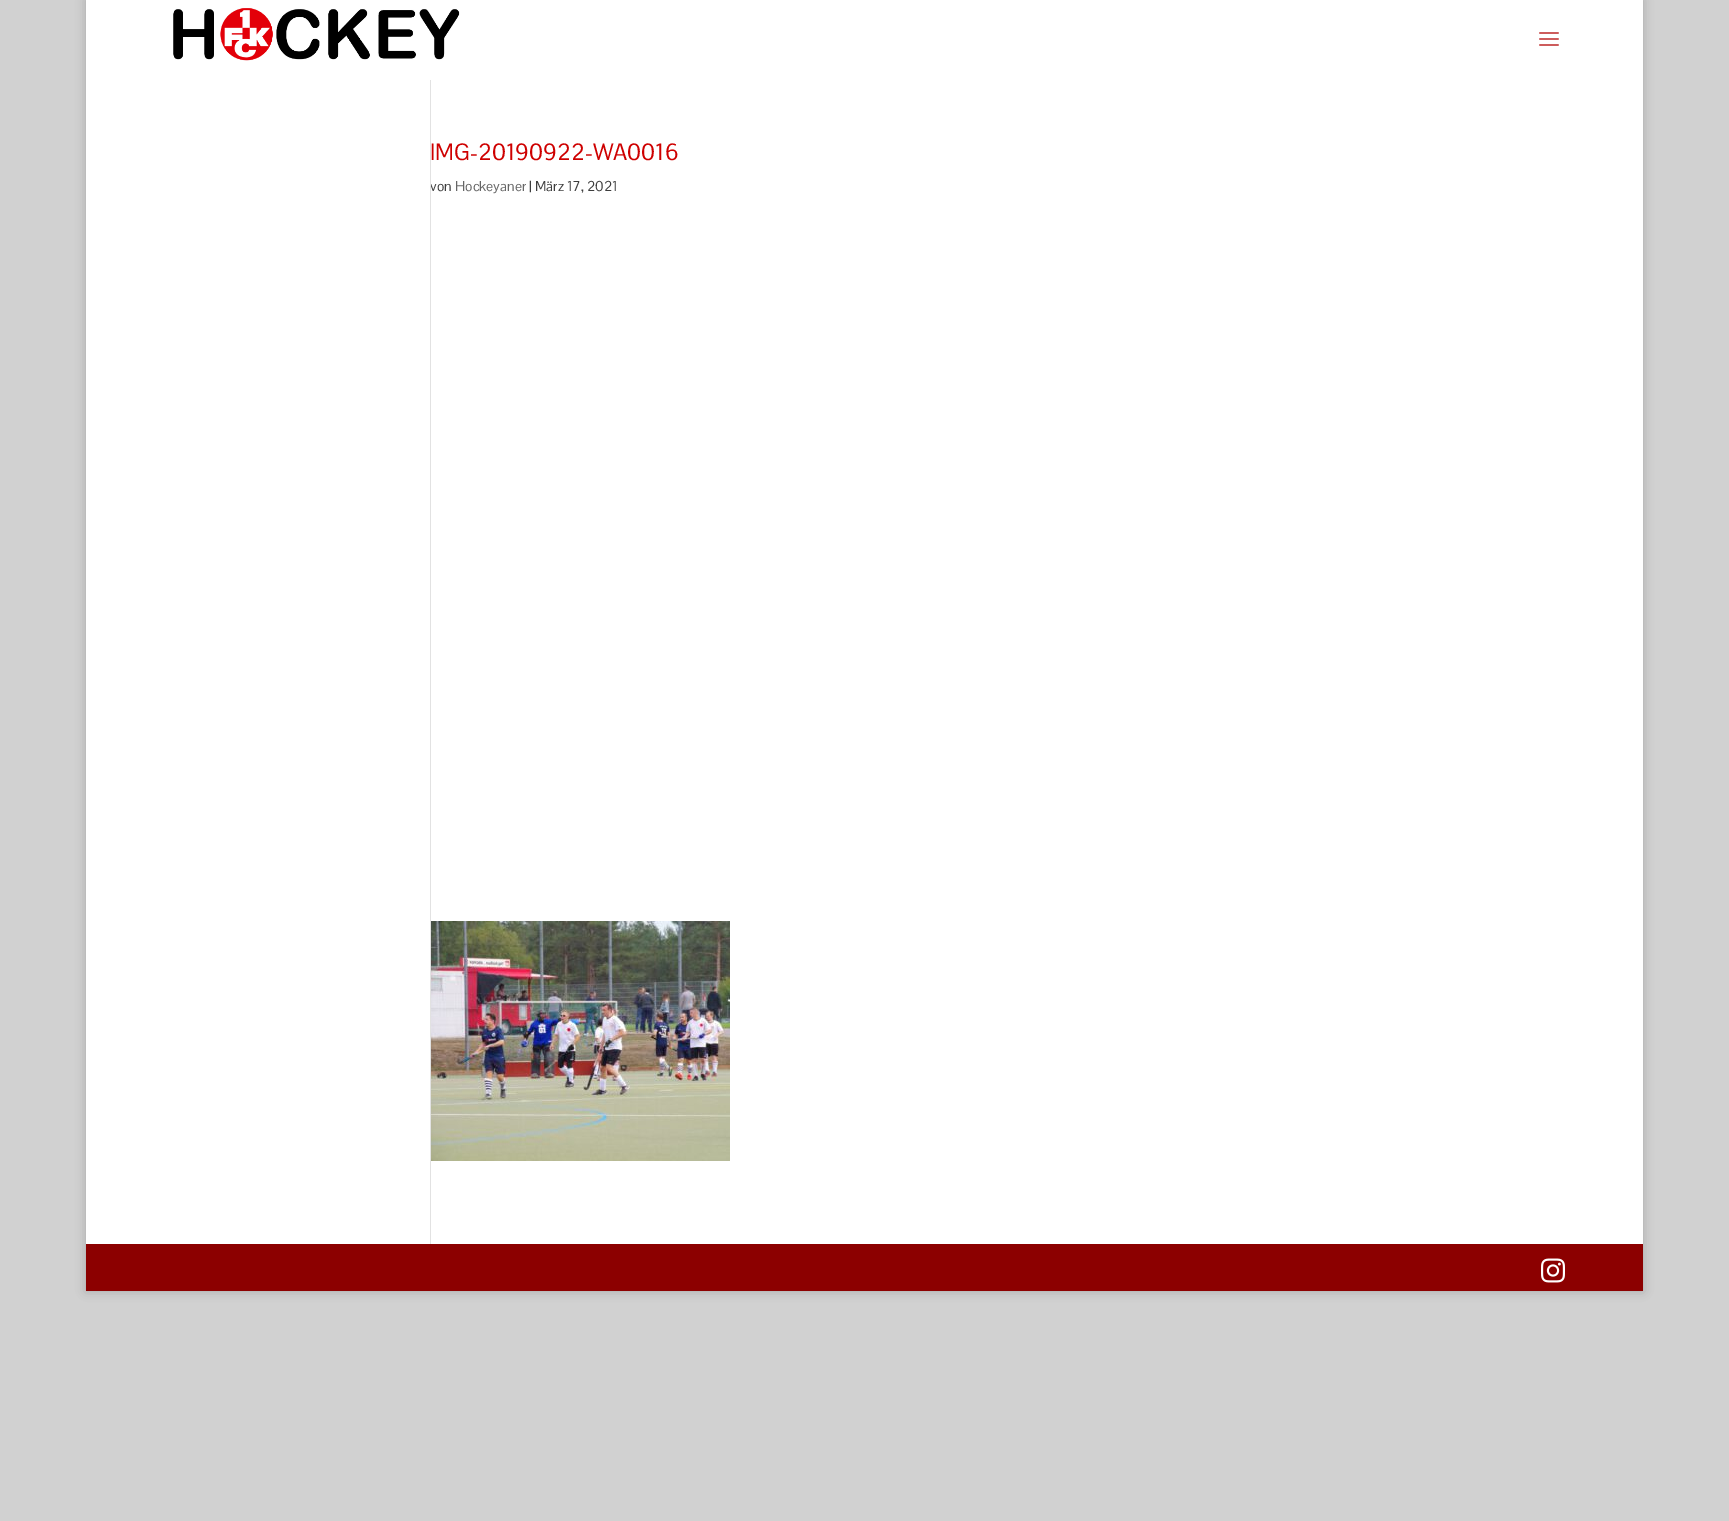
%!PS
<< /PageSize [1729 1521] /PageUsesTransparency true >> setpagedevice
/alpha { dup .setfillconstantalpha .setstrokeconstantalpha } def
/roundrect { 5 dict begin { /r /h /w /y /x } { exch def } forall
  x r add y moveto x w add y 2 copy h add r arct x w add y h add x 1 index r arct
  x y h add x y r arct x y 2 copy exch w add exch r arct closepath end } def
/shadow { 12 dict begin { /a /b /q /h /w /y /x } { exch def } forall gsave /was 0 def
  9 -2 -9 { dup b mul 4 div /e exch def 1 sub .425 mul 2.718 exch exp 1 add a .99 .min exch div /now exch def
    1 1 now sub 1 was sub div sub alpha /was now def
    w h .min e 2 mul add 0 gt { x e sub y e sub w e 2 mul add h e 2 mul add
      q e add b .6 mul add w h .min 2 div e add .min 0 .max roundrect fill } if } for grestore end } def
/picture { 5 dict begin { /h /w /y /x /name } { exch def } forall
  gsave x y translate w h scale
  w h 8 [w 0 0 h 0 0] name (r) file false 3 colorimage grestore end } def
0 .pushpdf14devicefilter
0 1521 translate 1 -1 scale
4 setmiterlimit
0.82 setgray
0 0 1729 1521 rectfill
0 setgray
86 0 1557 1291 0 5 0.2 shadow
1 setgray
86 0 1557 1244 rectfill
(img1.rgb) 173 0 287 80 picture
(img2.rgb) 1539 32 20 14 picture
/PontanoSans-Regular [14 0 0 -14 0 0] selectfont
0.239 setgray
430 191 moveto (von) show
0.886 setgray
430 80 1 1164 rectfill
/PontanoSans-Regular [23 0 0 -23 0 0] selectfont
0.808 0 0 setrgbcolor
430 160 moveto (IMG-20190922-WA0016) show
/PontanoSans-Regular [14 0 0 -14 0 0] selectfont
0.4 setgray
455 191 moveto (Hockeyaner) show
0.239 setgray
529 191 moveto (| März 17, 2021) show
(img3.rgb) 431 921 299 240 picture
0.549 0 0 setrgbcolor
86 1244 1557 47 rectfill
(img4.rgb) 1541 1258 24 25 picture
.poppdf14devicefilter showpage
